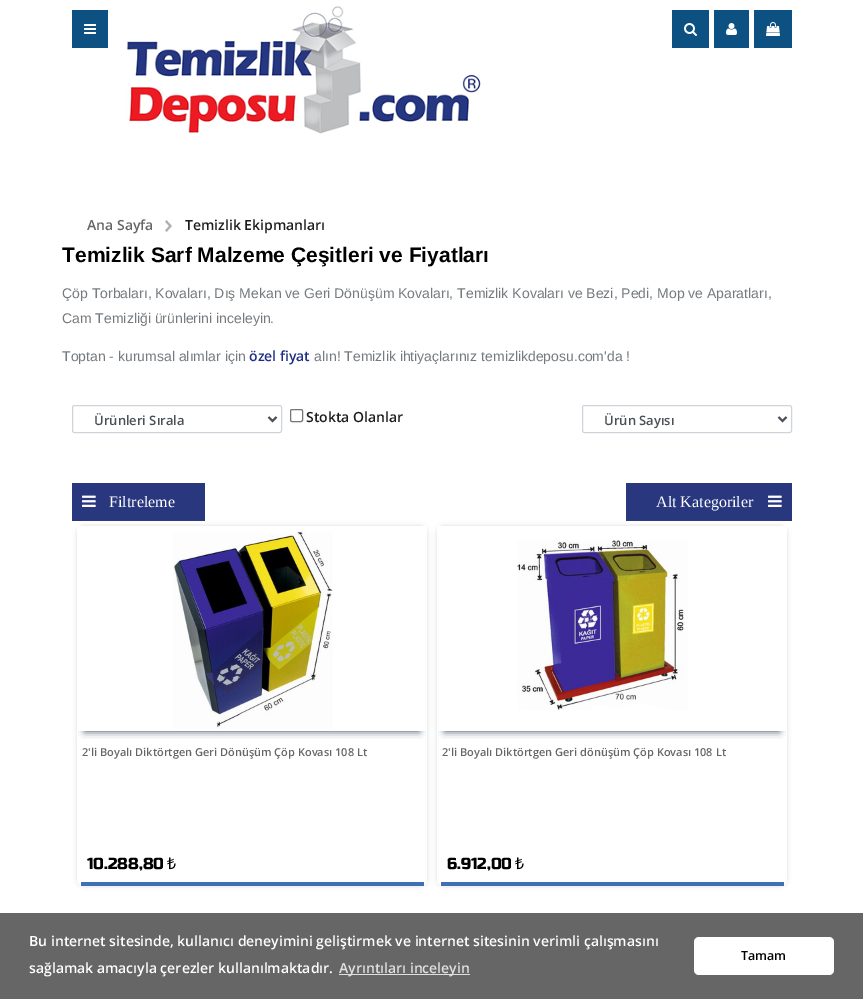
%!PS
<< /PageSize [863 999] /PageUsesTransparency true >> setpagedevice
/alpha { dup .setfillconstantalpha .setstrokeconstantalpha } def
/roundrect { 5 dict begin { /r /h /w /y /x } { exch def } forall
  x r add y moveto x w add y 2 copy h add r arct x w add y h add x 1 index r arct
  x y h add x y r arct x y 2 copy exch w add exch r arct closepath end } def
/shadow { 12 dict begin { /a /b /q /h /w /y /x } { exch def } forall gsave /was 0 def
  9 -2 -9 { dup b mul 4 div /e exch def 1 sub .425 mul 2.718 exch exp 1 add a .99 .min exch div /now exch def
    1 1 now sub 1 was sub div sub alpha /was now def
    w h .min e 2 mul add 0 gt { x e sub y e sub w e 2 mul add h e 2 mul add
      q e add b .6 mul add w h .min 2 div e add .min 0 .max roundrect fill } if } for grestore end } def
/picture { 5 dict begin { /h /w /y /x /name } { exch def } forall
  gsave x y translate w h scale
  w h 8 [w 0 0 h 0 0] name (r) file false 3 colorimage grestore end } def
0 .pushpdf14devicefilter
0 999 translate 1 -1 scale
4 setmiterlimit
1 setgray
0 0 863 999 rectfill
0.047 0.318 0.51 setrgbcolor
72 10 36 38 rectfill
(img1.rgb) 84 24 12 10 picture
(img2.rgb) 126 6 355 128 picture
672 10 37 38 rectfill
(img3.rgb) 684 23 13 13 picture
714 10 35 38 rectfill
(img4.rgb) 726 23 11 12 picture
754 10 38 38 rectfill
(img5.rgb) 766 22 14 14 picture
/OpenSans-SemiBold [14 0 0 -14 0 0] selectfont
0.4 setgray
87 230 moveto (Ana Sayfa) show
(img6.rgb) 165 220 7 12 picture
0.114 0.114 0.129 setrgbcolor
185 230 moveto (Temizlik Ekipmanları) show
/LiberationSans-Bold [21 0 0 -21 0 0] selectfont
0 setgray
62 262 moveto (Temizlik Sarf Malzeme Çeşitleri ve Fiyatları) show
/LiberationSans-Regular [14 0 0 -14 0 0] selectfont
0.459 0.478 0.494 setrgbcolor
62 298 moveto (Çöp Torbaları, Kovaları, Dış Mekan ve Geri Dönüşüm Kovaları, Temizlik Kovaları ve Bezi, Pedi, Mop ve Aparatları,) show
62 323 moveto (Cam Temizliği ürünlerini inceleyin.) show
62 361 moveto (Toptan - kurumsal alımlar için) show
/OpenSans-SemiBold [14 0 0 -14 0 0] selectfont
0.118 0.18 0.529 setrgbcolor
249 361 moveto (özel fiyat) show
/LiberationSans-Regular [14 0 0 -14 0 0] selectfont
0.459 0.478 0.494 setrgbcolor
314 361 moveto (alın! Temizlik ihtiyaçlarınız temizlikdeposu.com'da !) show
0.808 0.831 0.855 setrgbcolor
72.5 405.5 209 27 2 roundrect stroke
0.286 0.314 0.341 setrgbcolor
2 setlinewidth
newpath 268.5 417 moveto 272.5 421 lineto 276.5 417 lineto stroke
/OpenSans-SemiBold [13 0 0 -13 0 0] selectfont
94 425 moveto (Ürünleri Sırala) show
0.463 setgray
1 setlinewidth
290.5 409.5 12 12 1.5 roundrect stroke
/OpenSans-SemiBold [14 0 0 -14 0 0] selectfont
0.114 0.114 0.129 setrgbcolor
306 422 moveto (Stokta Olanlar) show
0.808 0.831 0.855 setrgbcolor
582.5 405.5 209 27 2 roundrect stroke
0.286 0.314 0.341 setrgbcolor
2 setlinewidth
newpath 778.5 417 moveto 782.5 421 lineto 786.5 417 lineto stroke
/OpenSans-SemiBold [13 0 0 -13 0 0] selectfont
604 425 moveto (Ürün Sayısı) show
0.161 0.216 0.494 setrgbcolor
72 483 133 38 rectfill
(img7.rgb) 82 495 14 12 picture
/LiberationSerif-Regular [16 0 0 -16 0 0] selectfont
1 setgray
109 507 moveto (Filtreleme) show
0.161 0.216 0.494 setrgbcolor
626 483 166 38 rectfill
1 setgray
656 507 moveto (Alt Kategoriler) show
(img7.rgb) 768 495 14 12 picture
0.867 setgray
77 526 350 360 7 2.5 1 shadow
1 setgray
newpath 77 526 moveto 427 526 lineto 427 879 lineto 427 883 424 886 420 886 curveto 84 886 lineto 80 886 77 883 77 879 curveto closepath fill
0.247 0.439 0.718 setrgbcolor
81 882 343 4 rectfill
gsave
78 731 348 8 rectclip
0.173 0.243 0.314 setrgbcolor
85 542 334 189 0 4 1 shadow
grestore
(img8.rgb) 173 529 160 200 picture
/OpenSans-SemiBold [11 0 0 -11 0 0] selectfont
0.4 setgray
82 756 moveto (2'li Boyalı Diktörtgen Geri Dönüşüm Çöp Kovası 108 Lt) show
/RussoOne-Regular [16 0 0 -16 0 0] selectfont
0 setgray
87 869 moveto (10.288,80) show
/NotoSans-Regular [16 0 0 -16 0 0] selectfont
167 869 moveto (₺) show
0.867 setgray
437 526 350 360 7 2.5 1 shadow
1 setgray
newpath 437 526 moveto 787 526 lineto 787 879 lineto 787 883 784 886 780 886 curveto 444 886 lineto 440 886 437 883 437 879 curveto closepath fill
0.247 0.439 0.718 setrgbcolor
441 882 343 4 rectfill
gsave
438 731 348 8 rectclip
0.173 0.243 0.314 setrgbcolor
445 542 334 189 0 4 1 shadow
grestore
(img9.rgb) 517 540 171 170 picture
/OpenSans-SemiBold [11 0 0 -11 0 0] selectfont
0.4 setgray
442 756 moveto (2'li Boyalı Diktörtgen Geri dönüşüm Çöp Kovası 108 Lt) show
/RussoOne-Regular [16 0 0 -16 0 0] selectfont
0 setgray
447 869 moveto (6.912,00) show
/NotoSans-Regular [16 0 0 -16 0 0] selectfont
515 869 moveto (₺) show
0.4 setgray
0 913 863 86 rectfill
/OpenSans-SemiBold [14 0 0 -14 0 0] selectfont
1 setgray
29 946 moveto (Bu internet sitesinde, kullanıcı deneyimini geliştirmek ve internet sitesinin verimli çalışmasını) show
29 973 moveto (sağlamak amacıyla çerezler kullanılmaktadır.) show
0.878 setgray
339 974 131 1 rectfill
339 973 moveto (Ayrıntıları inceleyin) show
1 setgray
694 937 140 38 5 roundrect fill
/OpenSans-SemiBold [12.5 0 0 -12.5 0 0] selectfont
0 setgray
741 960 moveto (Tamam) show
.poppdf14devicefilter showpage
